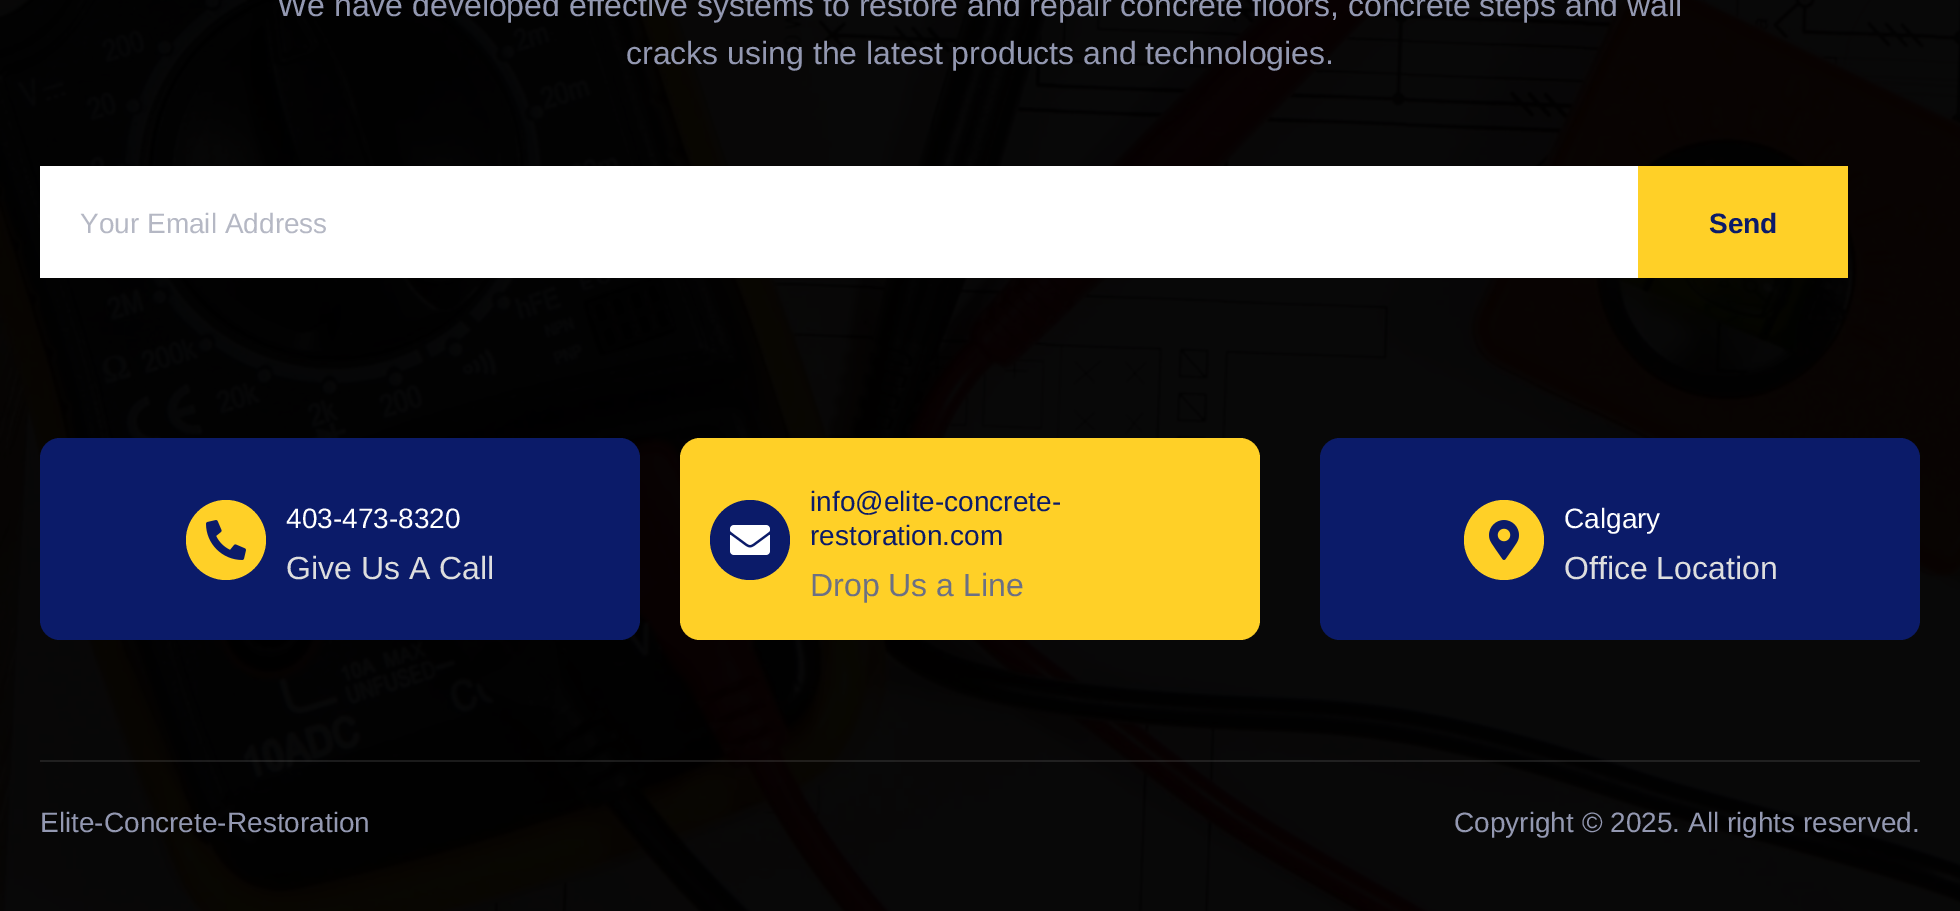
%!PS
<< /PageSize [1960 911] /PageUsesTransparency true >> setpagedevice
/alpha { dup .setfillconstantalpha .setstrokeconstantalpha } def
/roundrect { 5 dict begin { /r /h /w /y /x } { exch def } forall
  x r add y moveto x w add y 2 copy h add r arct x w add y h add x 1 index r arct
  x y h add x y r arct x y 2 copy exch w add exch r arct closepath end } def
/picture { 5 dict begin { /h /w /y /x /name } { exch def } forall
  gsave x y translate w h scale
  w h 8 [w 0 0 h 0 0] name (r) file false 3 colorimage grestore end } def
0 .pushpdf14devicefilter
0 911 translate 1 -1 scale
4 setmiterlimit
0 setgray
0 0 1960 911 rectfill
(img1.rgb) 0 0 1960 911 picture
/LiberationSans-Regular [32 0 0 -32 0 0] selectfont
0.576 0.596 0.694 setrgbcolor
277 16 moveto (We have developed effective systems to restore and repair concrete floors, concrete steps and wall) show
626 64 moveto (cracks using the latest products and technologies.) show
1 setgray
40 166 1598 112 rectfill
/LiberationSans-Regular [28 0 0 -28 0 0] selectfont
0.71 0.722 0.769 setrgbcolor
80 233 moveto (Your Email Address) show
1 0.816 0.153 setrgbcolor
1638 166 210 112 rectfill
/LiberationSans-Bold [28 0 0 -28 0 0] selectfont
0.043 0.106 0.412 setrgbcolor
1709 233 moveto (Send) show
40 438 600 202 20 roundrect fill
1 0.816 0.153 setrgbcolor
newpath 226 540 40 0 360 arc closepath fill
(img2.rgb) 206 520 40 40 picture
/LiberationSans-Regular [28 0 0 -28 0 0] selectfont
1 setgray
286 528 moveto (403-473-8320) show
/LiberationSans-Regular [32 0 0 -32 0 0] selectfont
0.871 setgray
286 579 moveto (Give Us A Call) show
1 0.816 0.153 setrgbcolor
680 438 580 202 20 roundrect fill
0.043 0.106 0.412 setrgbcolor
newpath 750 540 40 0 360 arc closepath fill
(img3.rgb) 730 525 40 30 picture
/LiberationSans-Regular [28 0 0 -28 0 0] selectfont
810 511 moveto (info@elite-concrete-) show
810 545 moveto (restoration.com) show
/LiberationSans-Regular [32 0 0 -32 0 0] selectfont
0.424 0.439 0.518 setrgbcolor
810 596 moveto (Drop Us a Line) show
0.043 0.106 0.412 setrgbcolor
1320 438 600 202 20 roundrect fill
1 0.816 0.153 setrgbcolor
newpath 1504 540 40 0 360 arc closepath fill
(img4.rgb) 1489 520 30 40 picture
/LiberationSans-Regular [28 0 0 -28 0 0] selectfont
1 setgray
1564 528 moveto (Calgary) show
/LiberationSans-Regular [32 0 0 -32 0 0] selectfont
0.871 setgray
1564 579 moveto (Office Location) show
0.1 alpha
1 setgray
40 760 1880 2 rectfill
/LiberationSans-Regular [28 0 0 -28 0 0] selectfont
1 alpha
0.576 0.596 0.694 setrgbcolor
40 832 moveto (Elite-Concrete-Restoration) show
1454 832 moveto (Copyright © 2025. All rights reserved.) show
.poppdf14devicefilter showpage
